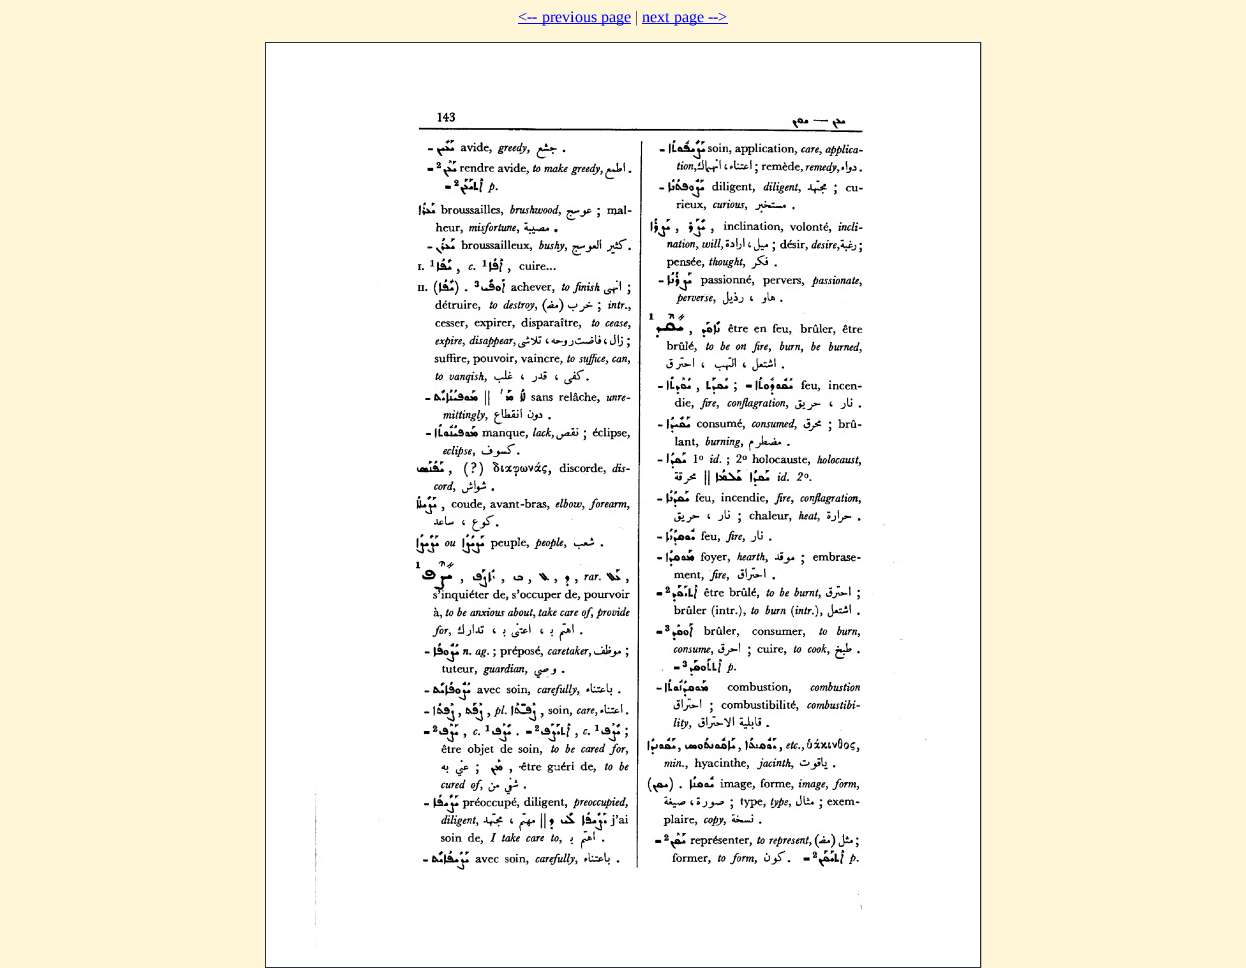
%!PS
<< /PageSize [1246 968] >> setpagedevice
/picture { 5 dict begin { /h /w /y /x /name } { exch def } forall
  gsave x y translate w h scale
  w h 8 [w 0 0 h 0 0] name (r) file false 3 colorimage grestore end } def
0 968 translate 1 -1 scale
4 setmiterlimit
1 0.965 0.843 setrgbcolor
0 0 1246 968 rectfill
0 0 1 setrgbcolor
518 23 113 1 rectfill
/LiberationSerif-Regular [16 0 0 -16 0 0] selectfont
518 22 moveto (<-- previous page) show
0.161 0.188 0.231 setrgbcolor
635 22 moveto (|) show
0 0 1 setrgbcolor
642 23 86 1 rectfill
642 22 moveto (next page -->) show
0.161 0.188 0.231 setrgbcolor
265.5 42.5 715 925 rectstroke
(img1.rgb) 266 43 714 924 picture
showpage
